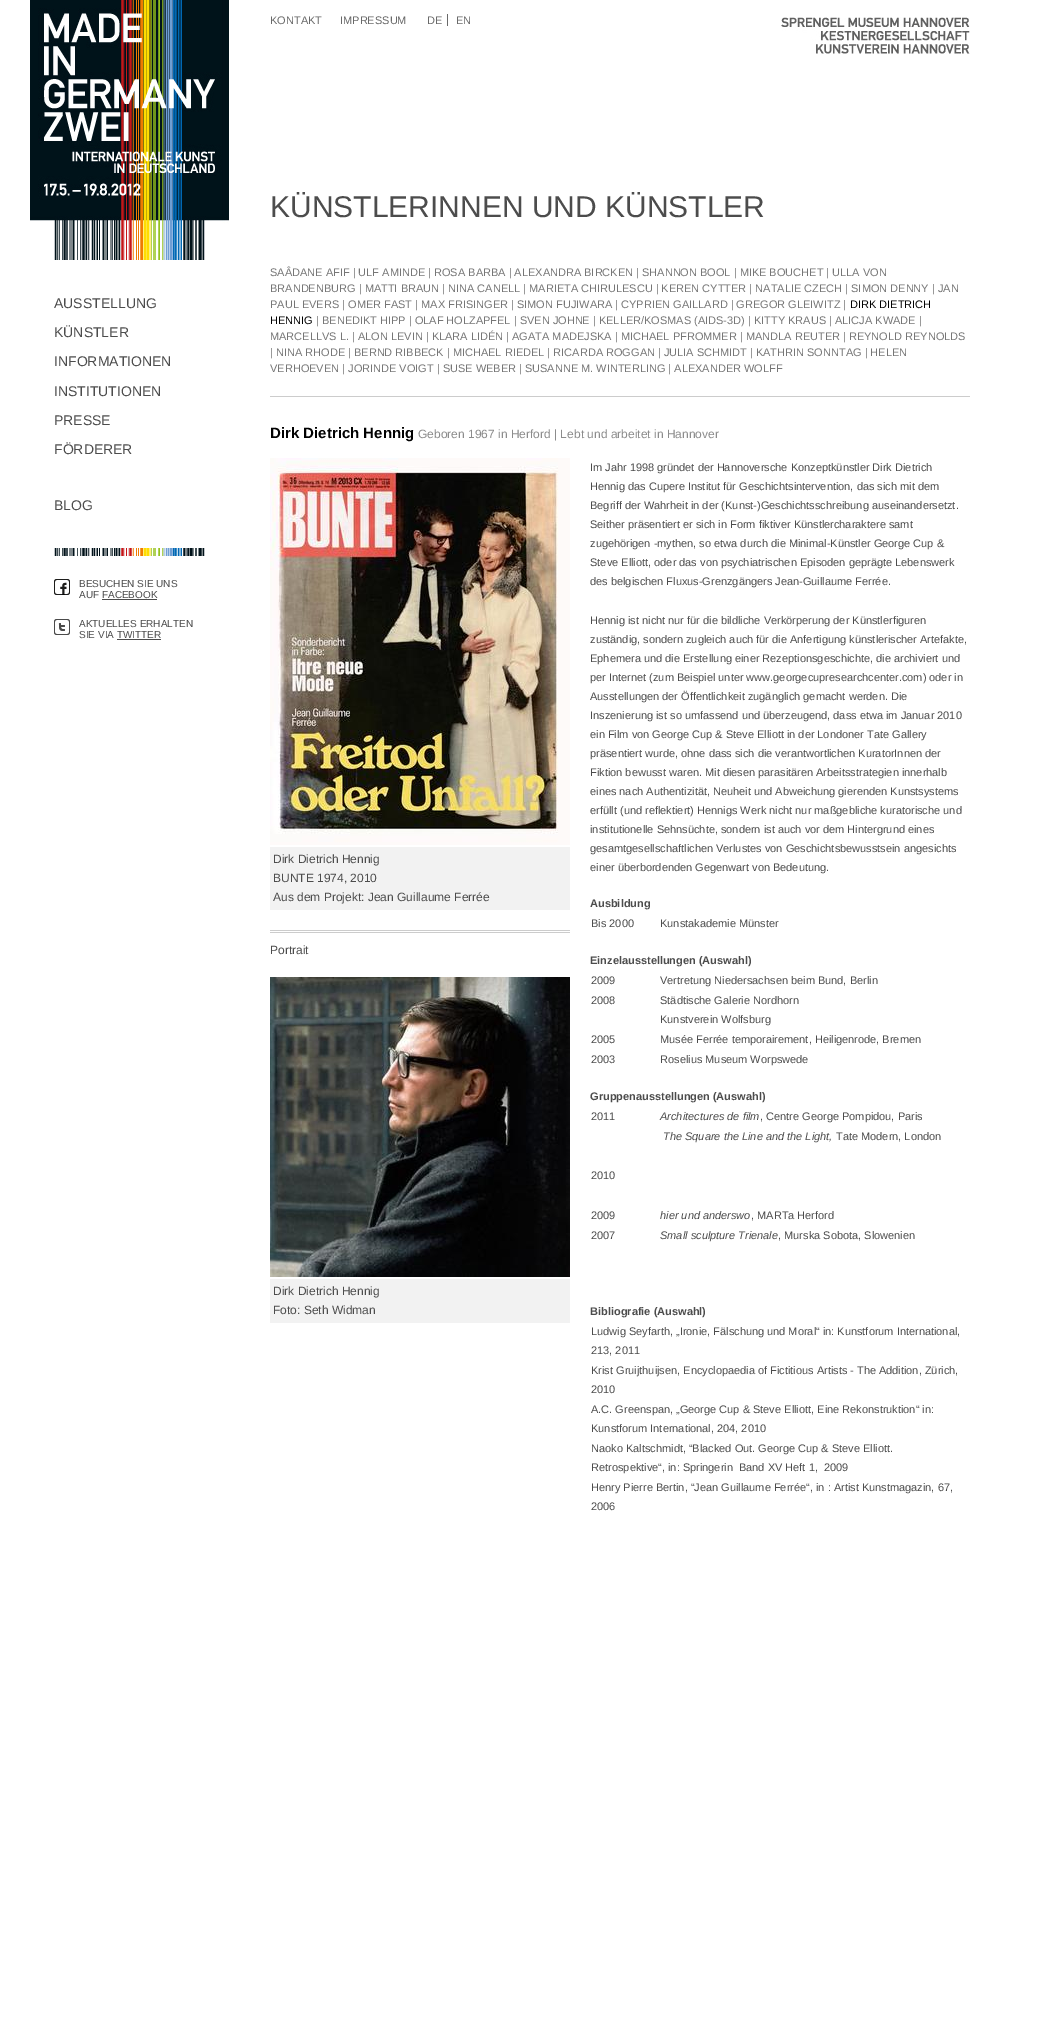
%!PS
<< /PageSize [1046 2020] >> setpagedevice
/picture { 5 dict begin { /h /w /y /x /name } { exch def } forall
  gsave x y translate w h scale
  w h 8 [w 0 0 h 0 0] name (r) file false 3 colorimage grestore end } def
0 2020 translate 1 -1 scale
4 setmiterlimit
1 setgray
0 0 1046 2020 rectfill
(img1.rgb) 781 17 189 37 picture
(img2.rgb) 30 0 199 260 picture
/LiberationSans-Regular [11 0 0 -11 0 0] selectfont
0.412 setgray
270 24 moveto (KONTAKT) show
340 24 moveto (IMPRESSUM) show
427 24 moveto (DE) show
447 14 1 12 rectfill
456 24 moveto (EN) show
/LiberationSans-Regular [14 0 0 -14 0 0] selectfont
0.298 setgray
54 308 moveto (AUSSTELLUNG) show
54 337 moveto (KÜNSTLER) show
54 366 moveto (INFORMATIONEN) show
54 396 moveto (INSTITUTIONEN) show
54 425 moveto (PRESSE) show
54 454 moveto (FÖRDERER) show
54 510 moveto (BLOG) show
(img3.rgb) 54 548 151 8 picture
(img4.rgb) 54 579 16 16 picture
/LiberationSans-Regular [10 0 0 -10 0 0] selectfont
79 587 moveto (BESUCHEN SIE UNS) show
79 598 moveto (AUF FACEBOOK) show
102 599 55 1 rectfill
(img5.rgb) 54 619 16 16 picture
79 627 moveto (AKTUELLES ERHALTEN) show
79 638 moveto (SIE VIA TWITTER) show
117 639 44 1 rectfill
/LiberationSans-Regular [30 0 0 -30 0 0] selectfont
270 217 moveto (KÜNSTLERINNEN UND KÜNSTLER) show
0.8 setgray
270 396 700 1 rectfill
/LiberationSans-Regular [11 0 0 -11 0 0] selectfont
0.463 setgray
270 276 moveto (SAÂDANE AFIF | ULF AMINDE | ROSA BARBA | ALEXANDRA BIRCKEN | SHANNON BOOL | MIKE BOUCHET | ULLA VON) show
270 292 moveto (BRANDENBURG | MATTI BRAUN | NINA CANELL | MARIETA CHIRULESCU | KEREN CYTTER | NATALIE CZECH | SIMON DENNY | JAN) show
270 308 moveto (PAUL EVERS | OMER FAST | MAX FRISINGER | SIMON FUJIWARA | CYPRIEN GAILLARD | GREGOR GLEIWITZ |) show
0.004 setgray
850 308 moveto (DIRK DIETRICH) show
270 324 moveto (HENNIG) show
0.463 setgray
316 324 moveto (| BENEDIKT HIPP | OLAF HOLZAPFEL | SVEN JOHNE | KELLER/KOSMAS \(AIDS-3D\) | KITTY KRAUS | ALICJA KWADE |) show
270 340 moveto (MARCELLVS L. | ALON LEVIN | KLARA LIDÉN | AGATA MADEJSKA | MICHAEL PFROMMER | MANDLA REUTER | REYNOLD REYNOLDS) show
270 356 moveto (| NINA RHODE | BERND RIBBECK | MICHAEL RIEDEL | RICARDA ROGGAN | JULIA SCHMIDT | KATHRIN SONNTAG | HELEN) show
270 372 moveto (VERHOEVEN | JORINDE VOIGT | SUSE WEBER | SUSANNE M. WINTERLING | ALEXANDER WOLFF) show
/LiberationSans-Bold [15 0 0 -15 0 0] selectfont
0.004 setgray
270 438 moveto (Dirk Dietrich Hennig) show
/LiberationSans-Regular [12 0 0 -12 0 0] selectfont
0.549 setgray
418 438 moveto (Geboren 1967 in Herford | Lebt und arbeitet in Hannover) show
(img6.rgb) 270 458 300 387 picture
0.949 setgray
270 847 300 63 rectfill
0.298 setgray
273 863 moveto (Dirk Dietrich Hennig) show
273 882 moveto (BUNTE 1974, 2010) show
273 901 moveto (Aus dem Projekt: Jean Guillaume Ferrée) show
0.8 setgray
270 930 300 1 rectfill
270 932 300 1 rectfill
0.298 setgray
270 954 moveto (Portrait) show
(img7.rgb) 270 977 300 300 picture
0.949 setgray
270 1279 300 44 rectfill
0.298 setgray
273 1295 moveto (Dirk Dietrich Hennig) show
273 1314 moveto (Foto: Seth Widman) show
/LiberationSans-Regular [11 0 0 -11 0 0] selectfont
590 471 moveto (Im Jahr 1998 gründet der Hannoversche Konzeptkünstler Dirk Dietrich) show
590 490 moveto (Hennig das Cupere Institut für Geschichtsintervention, das sich mit dem) show
590 509 moveto (Begriff der Wahrheit in der \(Kunst-\)Geschichtsschreibung auseinandersetzt.) show
590 528 moveto (Seither präsentiert er sich in Form fiktiver Künstlercharaktere samt) show
590 547 moveto (zugehörigen -mythen, so etwa durch die Minimal-Künstler George Cup &) show
590 566 moveto (Steve Elliott, oder das von psychiatrischen Episoden geprägte Lebenswerk) show
590 585 moveto (des belgischen Fluxus-Grenzgängers Jean-Guillaume Ferrée.) show
590 624 moveto (Hennig ist nicht nur für die bildliche Verkörperung der Künstlerfiguren) show
590 643 moveto (zuständig, sondern zugleich auch für die Anfertigung künstlerischer Artefakte,) show
590 662 moveto (Ephemera und die Erstellung einer Rezeptionsgeschichte, die archiviert und) show
590 681 moveto (per Internet \(zum Beispiel unter www.georgecupresearchcenter.com\) oder in) show
590 700 moveto (Ausstellungen der Öffentlichkeit zugänglich gemacht werden. Die) show
590 719 moveto (Inszenierung ist so umfassend und überzeugend, dass etwa im Januar 2010) show
590 738 moveto (ein Film von George Cup & Steve Elliott in der Londoner Tate Gallery) show
590 757 moveto (präsentiert wurde, ohne dass sich die verantwortlichen KuratorInnen der) show
590 776 moveto (Fiktion bewusst waren. Mit diesen parasitären Arbeitsstrategien innerhalb) show
590 795 moveto (eines nach Authentizität, Neuheit und Abweichung gierenden Kunstsystems) show
590 814 moveto (erfüllt \(und reflektiert\) Hennigs Werk nicht nur maßgebliche kuratorische und) show
590 833 moveto (institutionelle Sehnsüchte, sondern ist auch vor dem Hintergrund eines) show
590 852 moveto (gesamtgesellschaftlichen Verlustes von Geschichtsbewusstsein angesichts) show
590 871 moveto (einer überbordenden Gegenwart von Bedeutung.) show
/LiberationSans-Bold [11 0 0 -11 0 0] selectfont
590 907 moveto (Ausbildung) show
/LiberationSans-Regular [11 0 0 -11 0 0] selectfont
591 927 moveto (Bis 2000) show
660 927 moveto (Kunstakademie Münster) show
/LiberationSans-Bold [11 0 0 -11 0 0] selectfont
590 964 moveto (Einzelausstellungen \(Auswahl\)) show
/LiberationSans-Regular [11 0 0 -11 0 0] selectfont
591 984 moveto (2009) show
660 984 moveto (Vertretung Niedersachsen beim Bund, Berlin) show
591 1004 moveto (2008) show
660 1004 moveto (Städtische Galerie Nordhorn) show
660 1023 moveto (Kunstverein Wolfsburg) show
591 1043 moveto (2005) show
660 1043 moveto (Musée Ferrée temporairement, Heiligenrode, Bremen) show
591 1063 moveto (2003) show
660 1063 moveto (Roselius Museum Worpswede) show
/LiberationSans-Bold [11 0 0 -11 0 0] selectfont
590 1100 moveto (Gruppenausstellungen \(Auswahl\)) show
/LiberationSans-Regular [11 0 0 -11 0 0] selectfont
591 1120 moveto (2011) show
/LiberationSans-Italic [11 0 0 -11 0 0] selectfont
660 1120 moveto (Architectures de film) show
/LiberationSans-Regular [11 0 0 -11 0 0] selectfont
760 1120 moveto (, Centre George Pompidou, Paris) show
/LiberationSans-Italic [11 0 0 -11 0 0] selectfont
663 1140 moveto (The Square the Line and the Light,) show
/LiberationSans-Regular [11 0 0 -11 0 0] selectfont
836 1140 moveto (Tate Modern, London) show
591 1179 moveto (2010) show
591 1219 moveto (2009) show
/LiberationSans-Italic [11 0 0 -11 0 0] selectfont
660 1219 moveto (hier und anderswo) show
/LiberationSans-Regular [11 0 0 -11 0 0] selectfont
751 1219 moveto (, MARTa Herford) show
591 1239 moveto (2007) show
/LiberationSans-Italic [11 0 0 -11 0 0] selectfont
660 1239 moveto (Small sculpture Trienale) show
/LiberationSans-Regular [11 0 0 -11 0 0] selectfont
778 1239 moveto (, Murska Sobota, Slowenien) show
/LiberationSans-Bold [11 0 0 -11 0 0] selectfont
590 1315 moveto (Bibliografie \(Auswahl\)) show
/LiberationSans-Regular [11 0 0 -11 0 0] selectfont
591 1335 moveto (Ludwig Seyfarth, „Ironie, Fälschung und Moral“ in: Kunstforum International,) show
591 1354 moveto (213, 2011) show
591 1374 moveto (Krist Gruijthuijsen, Encyclopaedia of Fictitious Artists - The Addition, Zürich,) show
591 1393 moveto (2010) show
591 1413 moveto (A.C. Greenspan, „George Cup & Steve Elliott, Eine Rekonstruktion“ in:) show
591 1432 moveto (Kunstforum International, 204, 2010) show
591 1452 moveto (Naoko Kaltschmidt, “Blacked Out. George Cup & Steve Elliott.) show
591 1471 moveto (Retrospektive“, in: Springerin  Band XV Heft 1,  2009) show
591 1491 moveto (Henry Pierre Bertin, “Jean Guillaume Ferrée“, in : Artist Kunstmagazin, 67,) show
591 1510 moveto (2006) show
showpage
